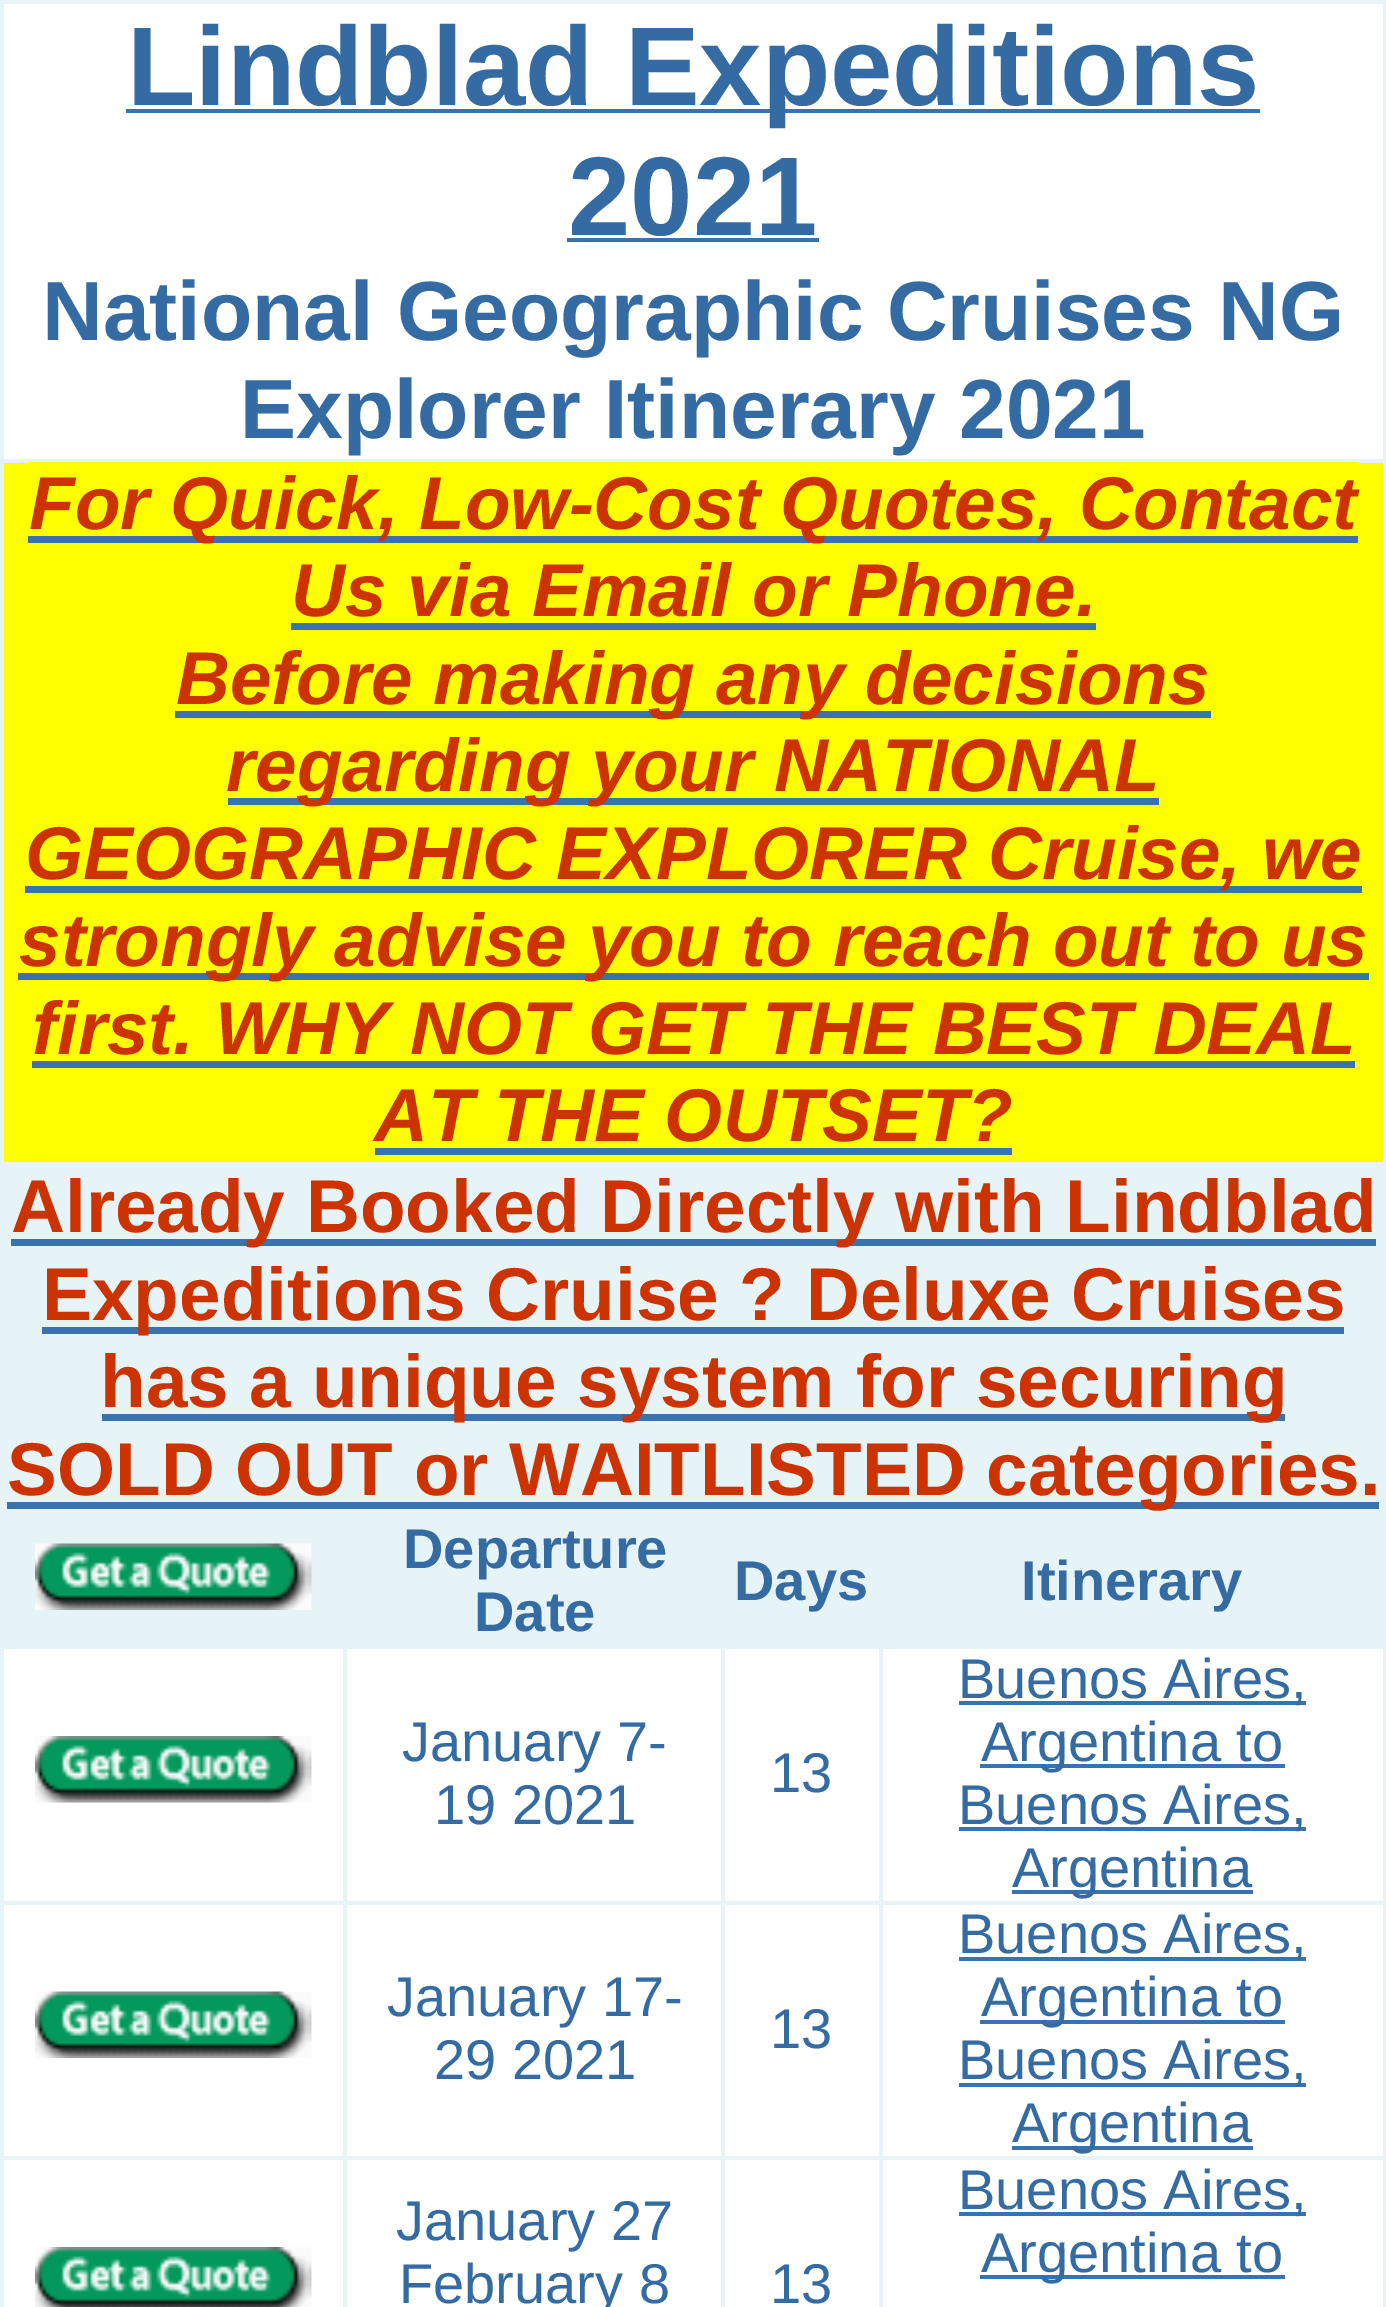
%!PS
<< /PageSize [1386 2307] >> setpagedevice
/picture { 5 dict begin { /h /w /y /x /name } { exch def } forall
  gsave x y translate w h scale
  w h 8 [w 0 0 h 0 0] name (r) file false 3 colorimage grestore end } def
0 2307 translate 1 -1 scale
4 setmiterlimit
1 setgray
0 0 1386 2307 rectfill
0.902 0.953 0.969 setrgbcolor
0 0 1386 4 rectfill
1383 0 3 2307 rectfill
0 0 4 2307 rectfill
0.22 0.451 0.678 setrgbcolor
126 109 1134 4 rectfill
/LiberationSans-Bold [112 0 0 -112 0 0] selectfont
0.204 0.42 0.639 setrgbcolor
127 105 moveto (Lindblad Expeditions) show
568 235 moveto (2021) show
0.22 0.451 0.678 setrgbcolor
567 238 252 4 rectfill
/LiberationSans-Bold [84 0 0 -84 0 0] selectfont
0.204 0.42 0.639 setrgbcolor
42 340 moveto (National Geographic Cruises NG) show
240 438 moveto (Explorer Itinerary 2021) show
1 1 0 setrgbcolor
4 463 1379 699 rectfill
0.902 0.953 0.969 setrgbcolor
0 459 1386 4 rectfill
0.22 0.451 0.678 setrgbcolor
28 536 1330 7 rectfill
/LiberationSans-BoldItalic [74.7 0 0 -74.7 0 0] selectfont
0.8 0.2 0 setrgbcolor
29 529 moveto (For Quick, Low-Cost Quotes, Contact) show
1 1 0 setrgbcolor
28 462 1330 1 rectfill
0.8 0.2 0 setrgbcolor
291 616 moveto (Us via Email or Phone.) show
0.22 0.451 0.678 setrgbcolor
291 623 805 7 rectfill
175 711 1036 7 rectfill
0.8 0.2 0 setrgbcolor
176 704 moveto (Before making any decisions) show
0.22 0.451 0.678 setrgbcolor
228 798 931 7 rectfill
0.8 0.2 0 setrgbcolor
226 791 moveto (regarding your NATIONAL) show
0.22 0.451 0.678 setrgbcolor
25 886 1337 7 rectfill
0.8 0.2 0 setrgbcolor
25 879 moveto (GEOGRAPHIC EXPLORER Cruise, we) show
0.22 0.451 0.678 setrgbcolor
18 973 1351 7 rectfill
0.8 0.2 0 setrgbcolor
19 966 moveto (strongly advise you to reach out to us) show
32 1054 moveto (first. WHY NOT GET THE BEST DEAL) show
0.22 0.451 0.678 setrgbcolor
32 1061 1323 7 rectfill
0.8 0.2 0 setrgbcolor
374 1141 moveto (AT THE OUTSET?) show
0.22 0.451 0.678 setrgbcolor
375 1148 637 7 rectfill
0.902 0.953 0.969 setrgbcolor
4 1166 1379 353 rectfill
0 1162 1386 4 rectfill
0.22 0.451 0.678 setrgbcolor
11 1239 1365 7 rectfill
/LiberationSans-Bold [74.7 0 0 -74.7 0 0] selectfont
0.8 0.2 0 setrgbcolor
11 1232 moveto (Already Booked Directly with Lindblad) show
0.22 0.451 0.678 setrgbcolor
42 1327 1302 7 rectfill
0.8 0.2 0 setrgbcolor
42 1320 moveto (Expeditions Cruise ? Deluxe Cruises) show
0.22 0.451 0.678 setrgbcolor
102 1414 1183 7 rectfill
0.8 0.2 0 setrgbcolor
100 1407 moveto (has a unique system for securing) show
0.22 0.451 0.678 setrgbcolor
7 1502 1372 7 rectfill
0.8 0.2 0 setrgbcolor
7 1495 moveto (SOLD OUT or WAITLISTED categories.) show
0.902 0.953 0.969 setrgbcolor
4 1519 1379 130 rectfill
(img1.rgb) 35 1543 277 67 picture
/LiberationSans-Bold [56 0 0 -56 0 0] selectfont
0.204 0.42 0.639 setrgbcolor
403 1568 moveto (Departure) show
474 1631 moveto (Date) show
734 1600 moveto (Days) show
1021 1600 moveto (Itinerary) show
(img2.rgb) 35 1736 277 67 picture
0.902 0.953 0.969 setrgbcolor
879 1901 507 4 rectfill
879 2156 507 4 rectfill
879 2156 4 151 rectfill
721 2156 161 4 rectfill
879 1901 4 259 rectfill
721 1901 161 4 rectfill
721 2156 4 151 rectfill
343 2156 382 4 rectfill
721 1901 4 259 rectfill
343 1901 382 4 rectfill
343 2156 4 151 rectfill
0 2156 347 4 rectfill
343 1901 4 259 rectfill
0 1901 347 4 rectfill
343 1645 4 259 rectfill
/LiberationSans-Regular [56 0 0 -56 0 0] selectfont
0.204 0.42 0.639 setrgbcolor
402 1761 moveto (January 7-) show
434 1824 moveto (19 2021) show
0.902 0.953 0.969 setrgbcolor
721 1645 4 259 rectfill
0.204 0.42 0.639 setrgbcolor
770 1792 moveto (13) show
0.902 0.953 0.969 setrgbcolor
879 1645 4 259 rectfill
0.22 0.451 0.678 setrgbcolor
959 1701 347 4 rectfill
0.204 0.42 0.639 setrgbcolor
958 1698 moveto (Buenos Aires,) show
0.22 0.451 0.678 setrgbcolor
980 1764 305 4 rectfill
0.204 0.42 0.639 setrgbcolor
981 1761 moveto (Argentina to) show
0.22 0.451 0.678 setrgbcolor
959 1827 347 4 rectfill
0.204 0.42 0.639 setrgbcolor
958 1824 moveto (Buenos Aires,) show
0.22 0.451 0.678 setrgbcolor
1012 1890 241 4 rectfill
0.204 0.42 0.639 setrgbcolor
1012 1887 moveto (Argentina) show
(img3.rgb) 35 1991 277 67 picture
387 2016 moveto (January 17-) show
434 2079 moveto (29 2021) show
770 2048 moveto (13) show
0.22 0.451 0.678 setrgbcolor
959 1957 347 4 rectfill
0.204 0.42 0.639 setrgbcolor
958 1953 moveto (Buenos Aires,) show
0.22 0.451 0.678 setrgbcolor
980 2020 305 4 rectfill
0.204 0.42 0.639 setrgbcolor
981 2016 moveto (Argentina to) show
0.22 0.451 0.678 setrgbcolor
959 2083 347 4 rectfill
0.204 0.42 0.639 setrgbcolor
958 2079 moveto (Buenos Aires,) show
0.22 0.451 0.678 setrgbcolor
1012 2146 241 4 rectfill
0.204 0.42 0.639 setrgbcolor
1012 2142 moveto (Argentina) show
(img4.rgb) 35 2247 277 60 picture
396 2240 moveto (January 27) show
399 2303 moveto (February 8) show
770 2303 moveto (13) show
0.22 0.451 0.678 setrgbcolor
959 2212 347 4 rectfill
0.204 0.42 0.639 setrgbcolor
958 2209 moveto (Buenos Aires,) show
0.22 0.451 0.678 setrgbcolor
980 2275 305 4 rectfill
0.204 0.42 0.639 setrgbcolor
981 2272 moveto (Argentina to) show
showpage
